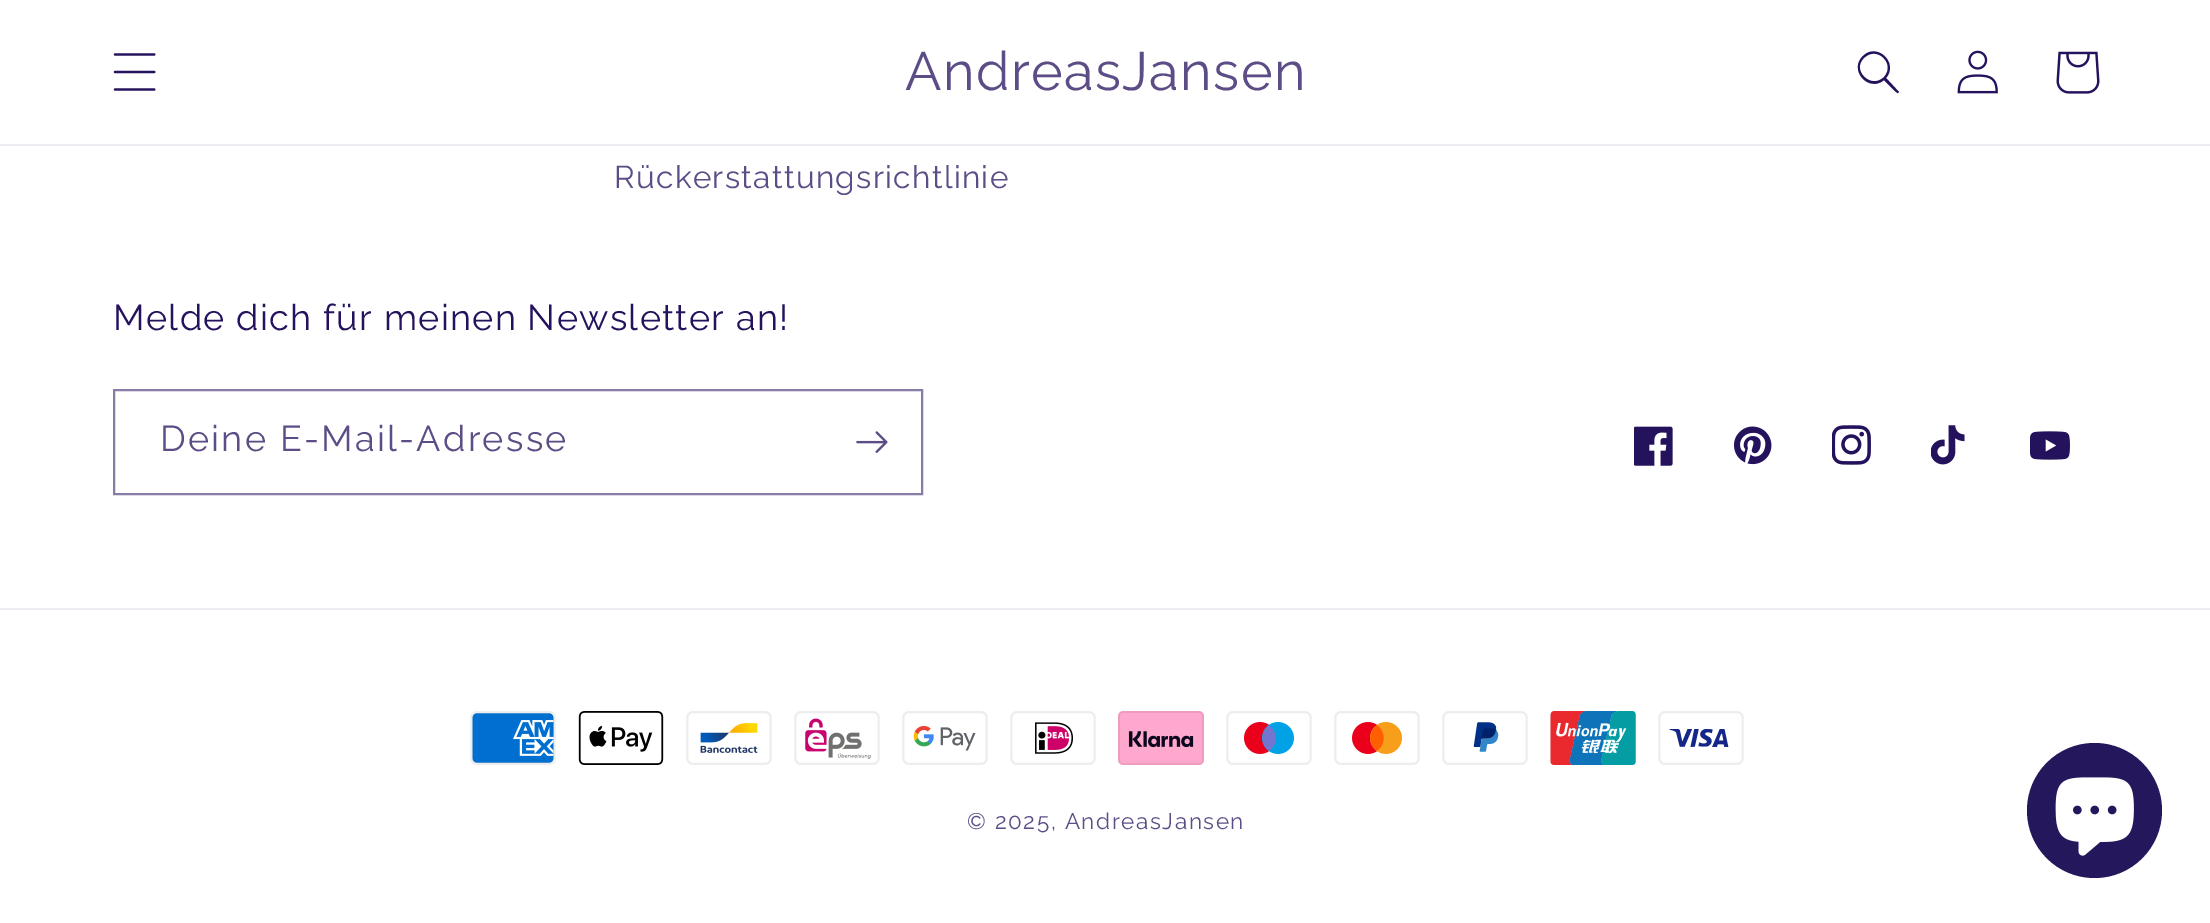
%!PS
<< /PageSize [2210 923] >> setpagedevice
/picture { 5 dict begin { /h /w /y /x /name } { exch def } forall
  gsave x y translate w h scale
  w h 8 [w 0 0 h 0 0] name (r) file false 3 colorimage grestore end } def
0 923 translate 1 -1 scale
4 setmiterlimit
1 setgray
0 0 2210 923 rectfill
0.933 0.925 0.949 setrgbcolor
0 144 2210 2 rectfill
(img1.rgb) 113 53 43 38 picture
/Raleway-Regular [54 0 0 -54 0 0] selectfont
0.361 0.302 0.525 setrgbcolor
905 90 moveto 1.35 0 (AndreasJansen) ashow
0.145 0.071 0.365 setrgbcolor
newpath 1884 77 moveto 1871 90 1851 70 1864 58 curveto 1877 45 1896 64 1884 77 curveto closepath 1884 80 moveto 1869 93 1848 70 1863 56 curveto 1877 42 1899 63 1886 78 curveto 1899 92 lineto 1898 93 lineto 1897 94 1886 82 1884 80 curveto closepath eofill
(img2.rgb) 1957 50 41 44 picture
(img3.rgb) 2056 51 44 43 picture
/Raleway-Regular [31.5 0 0 -31.5 0 0] selectfont
0.361 0.302 0.525 setrgbcolor
614 188 moveto 1.35 0 (Rückerstattungsrichtlinie) ashow
/Raleway-Regular [36 0 0 -36 0 0] selectfont
0.145 0.071 0.365 setrgbcolor
113 330 moveto 1.35 0 (Melde dich für meinen Newsletter an!) ashow
0.529 0.49 0.651 setrgbcolor
2 setlinewidth
114 390 808 104 rectstroke
0.361 0.302 0.525 setrgbcolor
160 451 moveto 2.25 0 (Deine E-Mail-Adresse) ashow
(img4.rgb) 856 431 32 22 picture
(img5.rgb) 1634 426 39 40 picture
(img6.rgb) 1734 426 38 39 picture
(img7.rgb) 1832 425 39 40 picture
(img8.rgb) 1931 425 34 40 picture
(img9.rgb) 2030 431 40 29 picture
0.933 0.925 0.949 setrgbcolor
0 608 2210 2 rectfill
(img10.rgb) 470 711 86 54 picture
(img11.rgb) 578 711 86 54 picture
(img12.rgb) 686 711 86 54 picture
(img13.rgb) 794 711 86 54 picture
(img14.rgb) 902 711 86 54 picture
(img15.rgb) 1010 711 86 54 picture
(img16.rgb) 1118 711 86 54 picture
(img17.rgb) 1226 711 86 54 picture
(img18.rgb) 1334 711 86 54 picture
(img19.rgb) 1442 711 86 54 picture
(img20.rgb) 1550 711 86 54 picture
(img21.rgb) 1658 711 86 54 picture
/Raleway-Regular [22.5 0 0 -22.5 0 0] selectfont
0.361 0.302 0.525 setrgbcolor
967 829 moveto 1.6 0 (© 2025, AndreasJansen) ashow
0.145 0.09 0.361 setrgbcolor
newpath 2094.5 810.5 67.5 0 360 arc closepath fill
(img22.rgb) 2055 777 79 79 picture
showpage
